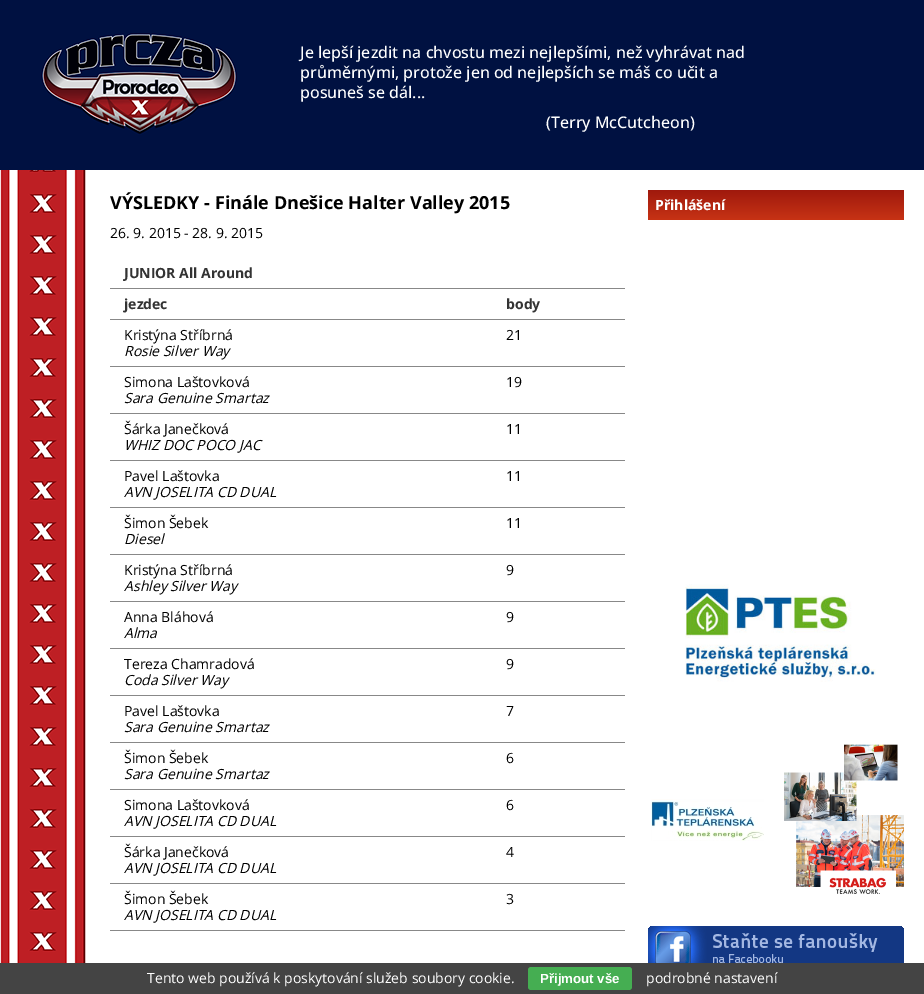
%!PS
<< /PageSize [924 994] >> setpagedevice
/roundrect { 5 dict begin { /r /h /w /y /x } { exch def } forall
  x r add y moveto x w add y 2 copy h add r arct x w add y h add x 1 index r arct
  x y h add x y r arct x y 2 copy exch w add exch r arct closepath end } def
/picture { 5 dict begin { /h /w /y /x /name } { exch def } forall
  gsave x y translate w h scale
  w h 8 [w 0 0 h 0 0] name (r) file false 3 colorimage grestore end } def
0 994 translate 1 -1 scale
4 setmiterlimit
1 setgray
0 0 924 994 rectfill
(img1.rgb) 0 170 86 793 picture
0 0.067 0.255 setrgbcolor
0 0 924 170 rectfill
(img2.rgb) 41 33 196 102 picture
/OpenSans-Medium [16 0 0 -16 0 0] selectfont
1 setgray
300 58 moveto (Je lepší jezdit na chvostu mezi nejlepšími, než vyhrávat nad) show
300 78 moveto (průměrnými, protože jen od nejlepších se máš co učit a) show
300 98 moveto (posuneš se dál...) show
546 128 moveto (\(Terry McCutcheon\)) show
/OpenSans-Bold [18 0 0 -18 0 0] selectfont
0 setgray
110 209 moveto (VÝSLEDKY - Finále Dnešice Halter Valley 2015) show
/OpenSans-Regular [14 0 0 -14 0 0] selectfont
110 238 moveto (26. 9. 2015 - 28. 9. 2015) show
0.533 setgray
110 288 515 1 rectfill
/OpenSans-Bold [14 0 0 -14 0 0] selectfont
0.2 setgray
124 278 moveto (JUNIOR All Around) show
124 309 moveto (jezdec) show
0.533 setgray
110 319 515 1 rectfill
0.2 setgray
506 309 moveto (body) show
/OpenSans-Regular [14 0 0 -14 0 0] selectfont
0 setgray
124 340 moveto (Kristýna Stříbrná) show
/OpenSans-Italic [14 0 0 -14 0 0] selectfont
124 356 moveto (Rosie Silver Way) show
0.533 setgray
110 366 515 1 rectfill
/OpenSans-Regular [14 0 0 -14 0 0] selectfont
0 setgray
506 340 moveto (21) show
124 387 moveto (Simona Laštovková) show
/OpenSans-Italic [14 0 0 -14 0 0] selectfont
124 403 moveto (Sara Genuine Smartaz) show
0.533 setgray
110 413 515 1 rectfill
/OpenSans-Regular [14 0 0 -14 0 0] selectfont
0 setgray
506 387 moveto (19) show
124 434 moveto (Šárka Janečková) show
/OpenSans-Italic [14 0 0 -14 0 0] selectfont
124 450 moveto (WHIZ DOC POCO JAC) show
0.533 setgray
110 460 515 1 rectfill
/OpenSans-Regular [14 0 0 -14 0 0] selectfont
0 setgray
506 434 moveto (11) show
124 481 moveto (Pavel Laštovka) show
/OpenSans-Italic [14 0 0 -14 0 0] selectfont
124 497 moveto (AVN JOSELITA CD DUAL) show
0.533 setgray
110 507 515 1 rectfill
/OpenSans-Regular [14 0 0 -14 0 0] selectfont
0 setgray
506 481 moveto (11) show
124 528 moveto (Šimon Šebek) show
/OpenSans-Italic [14 0 0 -14 0 0] selectfont
124 544 moveto (Diesel) show
0.533 setgray
110 554 515 1 rectfill
/OpenSans-Regular [14 0 0 -14 0 0] selectfont
0 setgray
506 528 moveto (11) show
124 575 moveto (Kristýna Stříbrná) show
/OpenSans-Italic [14 0 0 -14 0 0] selectfont
124 591 moveto (Ashley Silver Way) show
0.533 setgray
110 601 515 1 rectfill
/OpenSans-Regular [14 0 0 -14 0 0] selectfont
0 setgray
506 575 moveto (9) show
124 622 moveto (Anna Bláhová) show
/OpenSans-Italic [14 0 0 -14 0 0] selectfont
124 638 moveto (Alma) show
0.533 setgray
110 648 515 1 rectfill
/OpenSans-Regular [14 0 0 -14 0 0] selectfont
0 setgray
506 622 moveto (9) show
124 669 moveto (Tereza Chamradová) show
/OpenSans-Italic [14 0 0 -14 0 0] selectfont
124 685 moveto (Coda Silver Way) show
0.533 setgray
110 695 515 1 rectfill
/OpenSans-Regular [14 0 0 -14 0 0] selectfont
0 setgray
506 669 moveto (9) show
124 716 moveto (Pavel Laštovka) show
/OpenSans-Italic [14 0 0 -14 0 0] selectfont
124 732 moveto (Sara Genuine Smartaz) show
0.533 setgray
110 742 515 1 rectfill
/OpenSans-Regular [14 0 0 -14 0 0] selectfont
0 setgray
506 716 moveto (7) show
124 763 moveto (Šimon Šebek) show
/OpenSans-Italic [14 0 0 -14 0 0] selectfont
124 779 moveto (Sara Genuine Smartaz) show
0.533 setgray
110 789 515 1 rectfill
/OpenSans-Regular [14 0 0 -14 0 0] selectfont
0 setgray
506 763 moveto (6) show
124 810 moveto (Simona Laštovková) show
/OpenSans-Italic [14 0 0 -14 0 0] selectfont
124 826 moveto (AVN JOSELITA CD DUAL) show
0.533 setgray
110 836 515 1 rectfill
/OpenSans-Regular [14 0 0 -14 0 0] selectfont
0 setgray
506 810 moveto (6) show
124 857 moveto (Šárka Janečková) show
/OpenSans-Italic [14 0 0 -14 0 0] selectfont
124 873 moveto (AVN JOSELITA CD DUAL) show
0.533 setgray
110 883 515 1 rectfill
/OpenSans-Regular [14 0 0 -14 0 0] selectfont
0 setgray
506 857 moveto (4) show
124 904 moveto (Šimon Šebek) show
/OpenSans-Italic [14 0 0 -14 0 0] selectfont
124 920 moveto (AVN JOSELITA CD DUAL) show
0.533 setgray
110 930 515 1 rectfill
/OpenSans-Regular [14 0 0 -14 0 0] selectfont
0 setgray
506 904 moveto (3) show
gsave newpath 648 190 moveto 904 190 lineto 904 220 lineto 648 220 lineto closepath clip newpath
<< /ShadingType 2 /ColorSpace /DeviceRGB /Coords [776 220 776 190] /Extend [true true] /Function << /FunctionType 2 /Domain [0 1] /C0 [0.78 0.2 0.082] /C1 [0.624 0.098 0.051] /N 1 >> >> shfill grestore
/OpenSans-Bold [14 0 0 -14 0 0] selectfont
1 setgray
655 210 moveto (Přihlášení) show
(img3.rgb) 685 584 191 98 picture
(img4.rgb) 651 799 113 42 picture
(img5.rgb) 784 744 120 150 picture
(img6.rgb) 648 926 256 37 picture
0.267 setgray
0 963 924 31 rectfill
/OpenSans-Regular [14 0 0 -14 0 0] selectfont
1 setgray
147 983 moveto (Tento web používá k poskytování služeb soubory cookie.) show
0.271 0.682 0.322 setrgbcolor
528 967 104 23 3 roundrect fill
/LiberationSans-Bold [13.25 0 0 -13.25 0 0] selectfont
1 setgray
540 983 moveto (Přijmout vše) show
/OpenSans-Regular [14 0 0 -14 0 0] selectfont
646 983 moveto (podrobné nastavení) show
showpage
